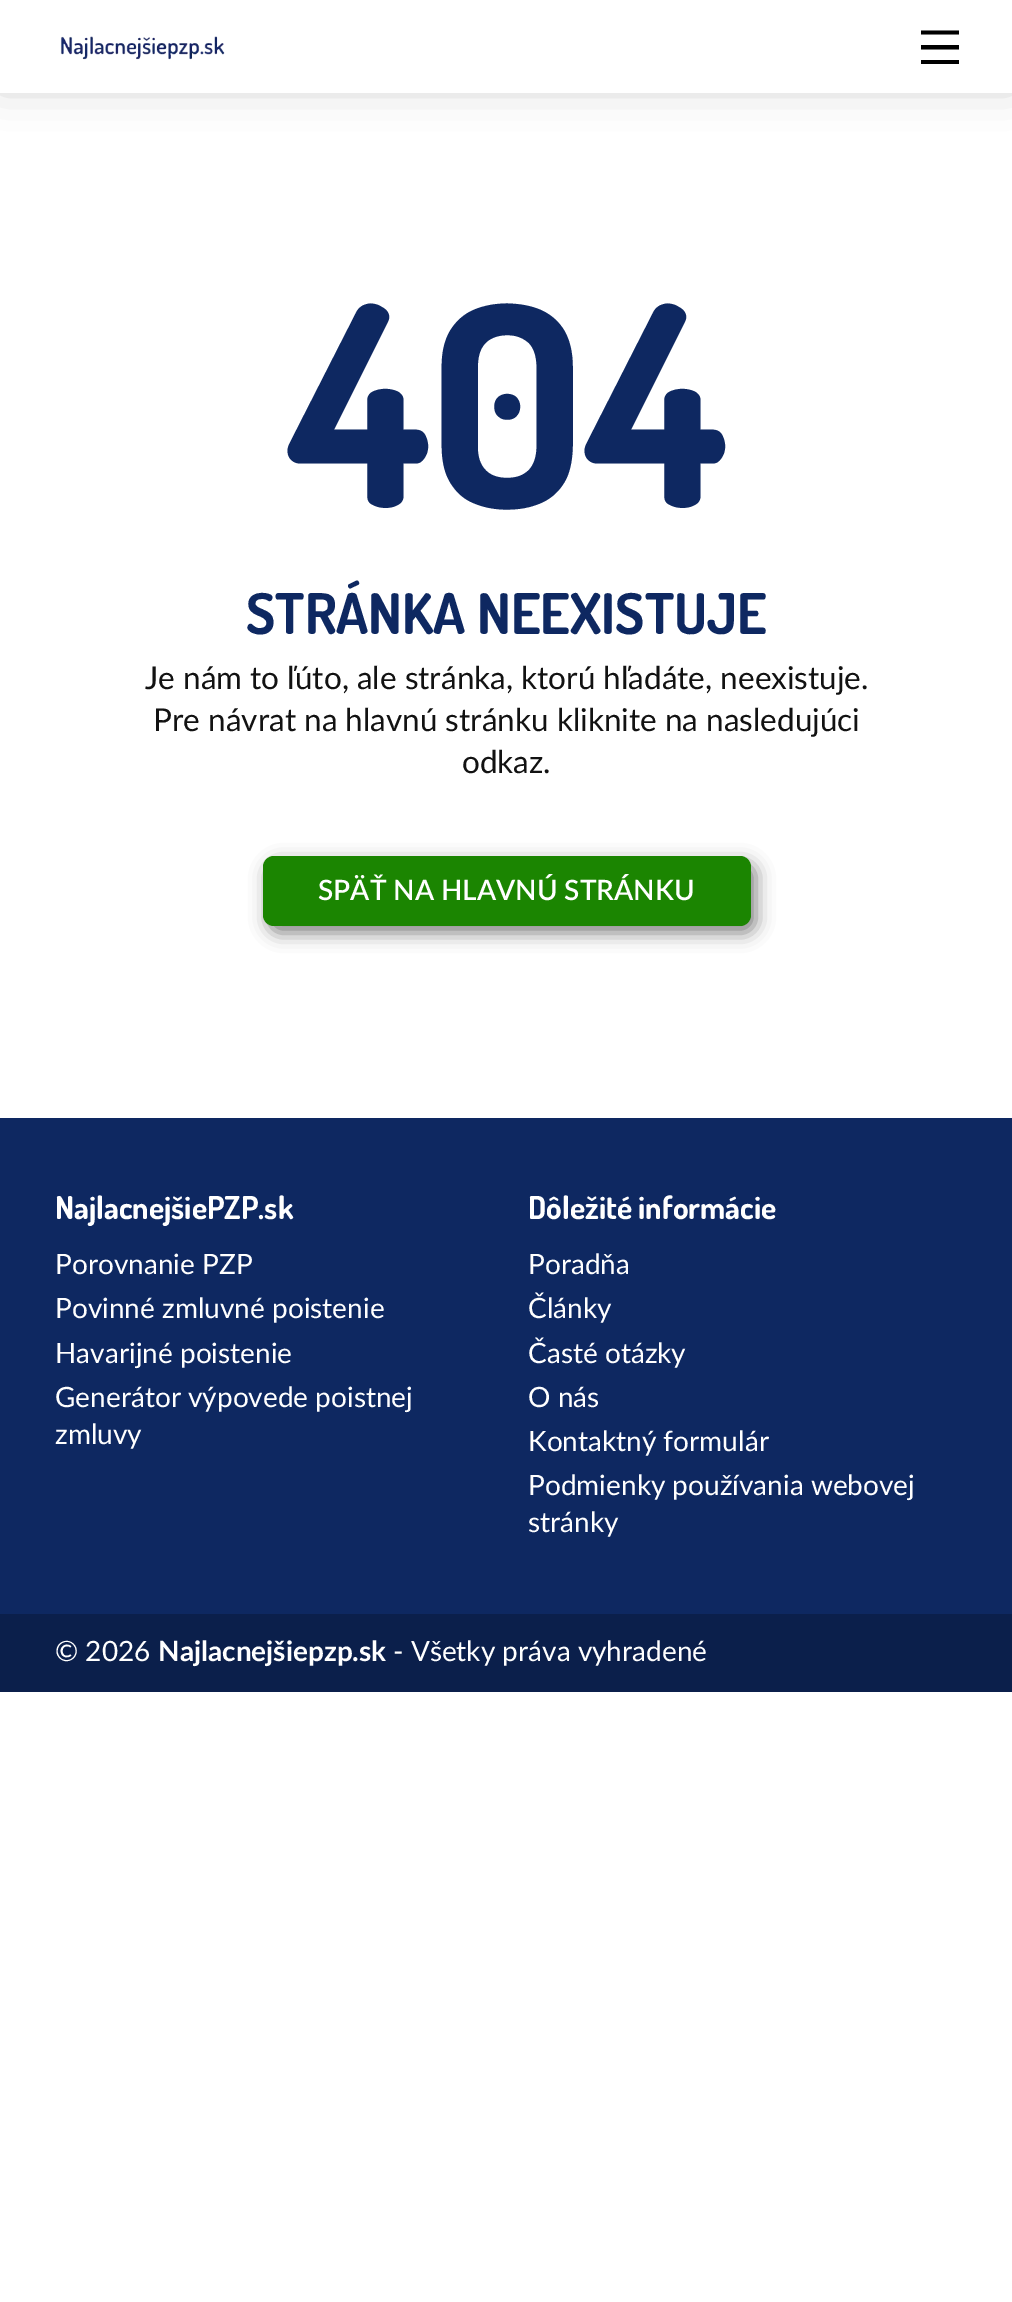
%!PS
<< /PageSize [1012 2302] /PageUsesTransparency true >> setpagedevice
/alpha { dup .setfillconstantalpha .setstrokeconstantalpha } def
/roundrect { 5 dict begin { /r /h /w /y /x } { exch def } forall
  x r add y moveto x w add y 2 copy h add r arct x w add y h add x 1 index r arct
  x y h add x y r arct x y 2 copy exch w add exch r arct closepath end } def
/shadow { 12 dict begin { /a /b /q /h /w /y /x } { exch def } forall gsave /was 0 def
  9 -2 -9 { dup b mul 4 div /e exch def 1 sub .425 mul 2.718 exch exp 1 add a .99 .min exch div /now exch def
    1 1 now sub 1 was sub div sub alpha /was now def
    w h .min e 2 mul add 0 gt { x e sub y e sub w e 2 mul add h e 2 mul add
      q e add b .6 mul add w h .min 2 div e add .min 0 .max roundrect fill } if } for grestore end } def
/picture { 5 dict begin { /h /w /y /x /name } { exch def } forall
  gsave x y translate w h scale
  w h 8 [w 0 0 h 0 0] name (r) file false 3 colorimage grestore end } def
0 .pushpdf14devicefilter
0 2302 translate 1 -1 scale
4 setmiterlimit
1 setgray
0 0 1012 2302 rectfill
0 setgray
0 -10 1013 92 0 22 0.25 shadow
1 setgray
0 0 1012 93 rectfill
(img1.rgb) 60 36 165 24 picture
gsave
921 30 38 35 rectclip
0 setgray
newpath 920.5 30.5 moveto 959 30.5 lineto 959 34.5 lineto 920.5 34.5 lineto closepath 920.5 45 moveto 959 45 lineto 959 49.5 lineto 920.5 49.5 lineto closepath 920.5 60 moveto 959 60 lineto 959 64 lineto 920.5 64 lineto closepath fill
grestore
/Dosis-Bold [280 0 0 -280 0 0] selectfont
0.055 0.157 0.38 setrgbcolor
288 508 moveto (404) show
/Dosis-Bold [56 0 0 -56 0 0] selectfont
246 634 moveto (STRÁNKA NEEXISTUJE) show
/Lato-Regular [31.5 0 0 -31.5 0 0] selectfont
0.071 setgray
145 689 moveto (Je nám to ľúto, ale stránka, ktorú hľadáte, neexistuje.) show
153 731 moveto (Pre návrat na hlavnú stránku kliknite na nasledujúci) show
462 773 moveto (odkaz.) show
0 setgray
268 863 488 70 11 9 0.5 shadow
0.106 0.522 0.004 setrgbcolor
263 856 488 70 11 roundrect fill
/Lato-SemiBold [28 0 0 -28 0 0] selectfont
1 setgray
318 900 moveto (SPÄŤ NA HLAVNÚ STRÁNKU) show
0.055 0.157 0.38 setrgbcolor
0 1118 1012 496 rectfill
/Dosis-Bold [31.5 0 0 -31.5 0 0] selectfont
1 setgray
55 1219 moveto (NajlacnejšiePZP.sk) show
/Lato-Regular [28 0 0 -28 0 0] selectfont
55 1274 moveto (Porovnanie PZP) show
55 1318 moveto (Povinné zmluvné poistenie) show
55 1363 moveto (Havarijné poistenie) show
55 1407 moveto (Generátor výpovede poistnej) show
55 1444 moveto (zmluvy) show
/Dosis-Bold [31.5 0 0 -31.5 0 0] selectfont
528 1219 moveto (Dôležité informácie) show
/Lato-Regular [28 0 0 -28 0 0] selectfont
528 1274 moveto (Poradňa) show
528 1318 moveto (Články) show
528 1363 moveto (Časté otázky) show
528 1407 moveto (O nás) show
528 1451 moveto (Kontaktný formulár) show
528 1495 moveto (Podmienky používania webovej) show
528 1532 moveto (stránky) show
0.043 0.122 0.294 setrgbcolor
0 1614 1012 78 rectfill
1 setgray
55 1661 moveto (© 2026) show
/Lato-Bold [28 0 0 -28 0 0] selectfont
158 1661 moveto (Najlacnejšiepzp.sk) show
/Lato-Regular [28 0 0 -28 0 0] selectfont
393 1661 moveto (- Všetky práva vyhradené) show
.poppdf14devicefilter showpage
